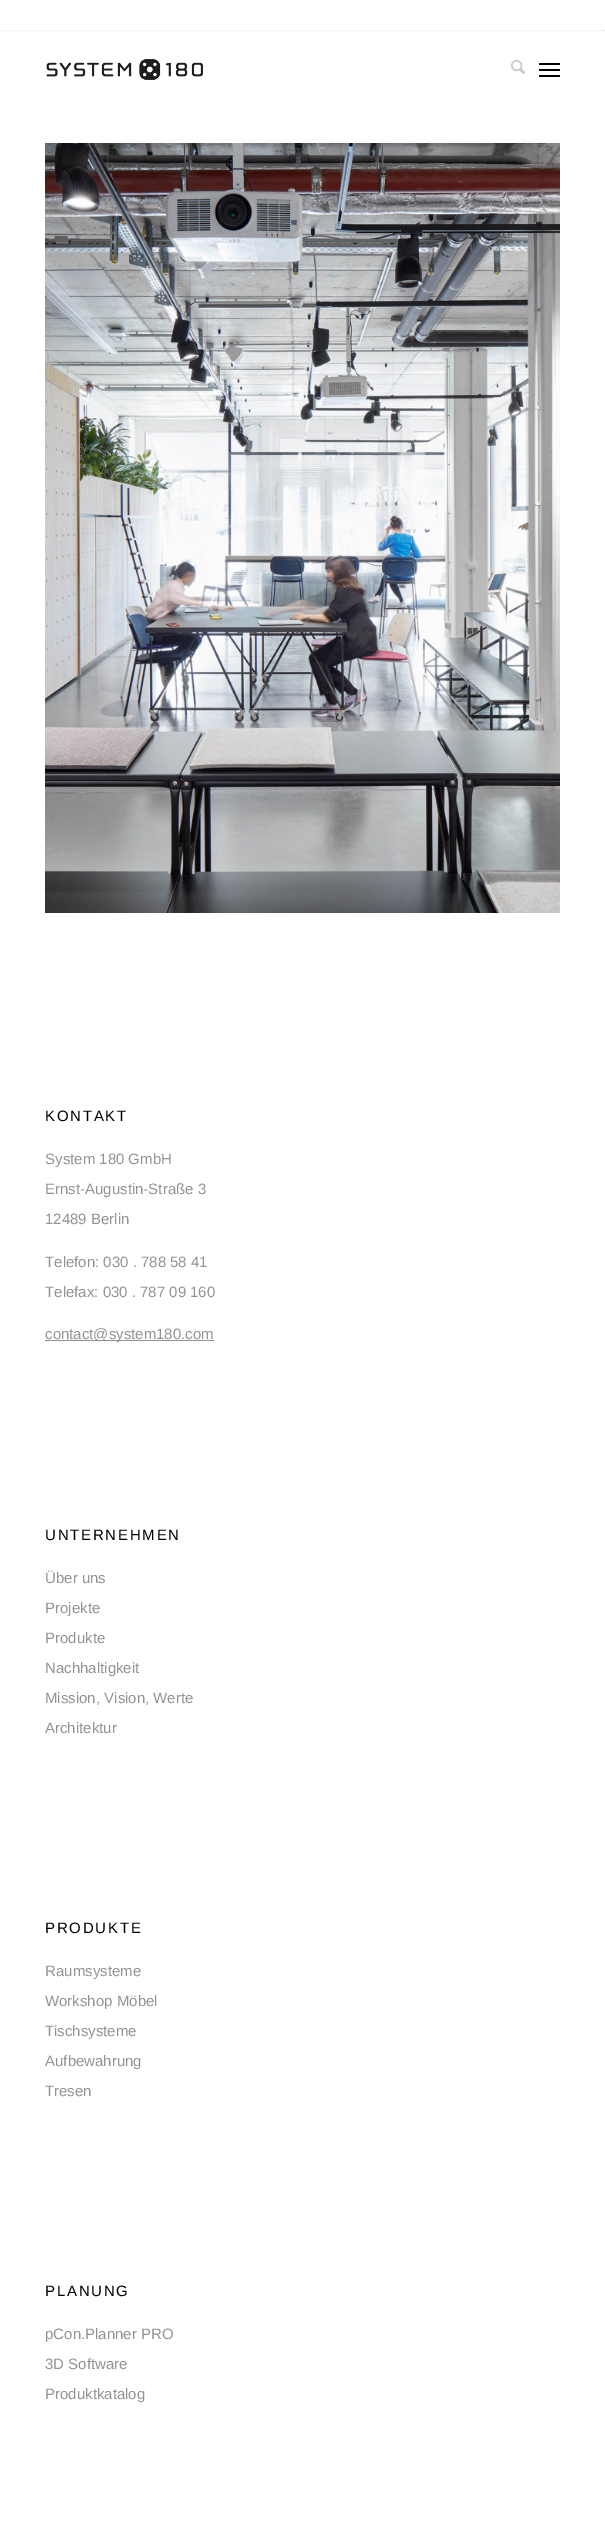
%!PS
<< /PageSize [605 2545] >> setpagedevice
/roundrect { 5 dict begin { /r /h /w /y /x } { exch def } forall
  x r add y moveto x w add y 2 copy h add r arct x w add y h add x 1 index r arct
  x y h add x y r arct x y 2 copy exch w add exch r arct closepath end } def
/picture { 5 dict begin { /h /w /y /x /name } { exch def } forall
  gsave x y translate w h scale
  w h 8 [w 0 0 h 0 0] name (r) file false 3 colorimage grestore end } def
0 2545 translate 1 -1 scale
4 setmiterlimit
1 setgray
0 0 605 2545 rectfill
0.91 setgray
[1 1] 0 setdash
newpath 0 30.5 moveto 605 30.5 lineto stroke
(img1.rgb) 46 59 157 21 picture
(img2.rgb) 511 59 14 15 picture
0 setgray
539 69 21 2 1 roundrect fill
539 63 21 2 1 roundrect fill
539 75 21 2 1 roundrect fill
(img3.rgb) 45 143 515 770 picture
/LiberationSans-Regular [15 0 0 -15 0 0] selectfont
45 1121 moveto 1.75 0 (KONTAKT) ashow
0.569 0.58 0.58 setrgbcolor
45 1164 moveto (System 180 GmbH) show
45 1194 moveto (Ernst-Augustin-Straße 3) show
45 1224 moveto (12489 Berlin) show
45 1267 moveto (Telefon: 030 . 788 58 41) show
45 1297 moveto (Telefax: 030 . 787 09 160) show
45 1340 169 1 rectfill
45 1339 moveto (contact@system180.com) show
0 setgray
45 1540 moveto 1.75 0 (UNTERNEHMEN) ashow
0.569 0.58 0.58 setrgbcolor
45 1583 moveto (Über uns) show
45 1613 moveto (Projekte) show
45 1643 moveto (Produkte) show
45 1673 moveto (Nachhaltigkeit) show
45 1703 moveto (Mission, Vision, Werte) show
45 1733 moveto (Architektur) show
0 setgray
45 1933 moveto 1.75 0 (PRODUKTE) ashow
0.569 0.58 0.58 setrgbcolor
45 1976 moveto (Raumsysteme) show
45 2006 moveto (Workshop Möbel) show
45 2036 moveto (Tischsysteme) show
45 2066 moveto (Aufbewahrung) show
45 2096 moveto (Tresen) show
0 setgray
45 2296 moveto 1.75 0 (PLANUNG) ashow
0.569 0.58 0.58 setrgbcolor
45 2339 moveto (pCon.Planner PRO) show
45 2369 moveto (3D Software) show
45 2399 moveto (Produktkatalog) show
showpage
